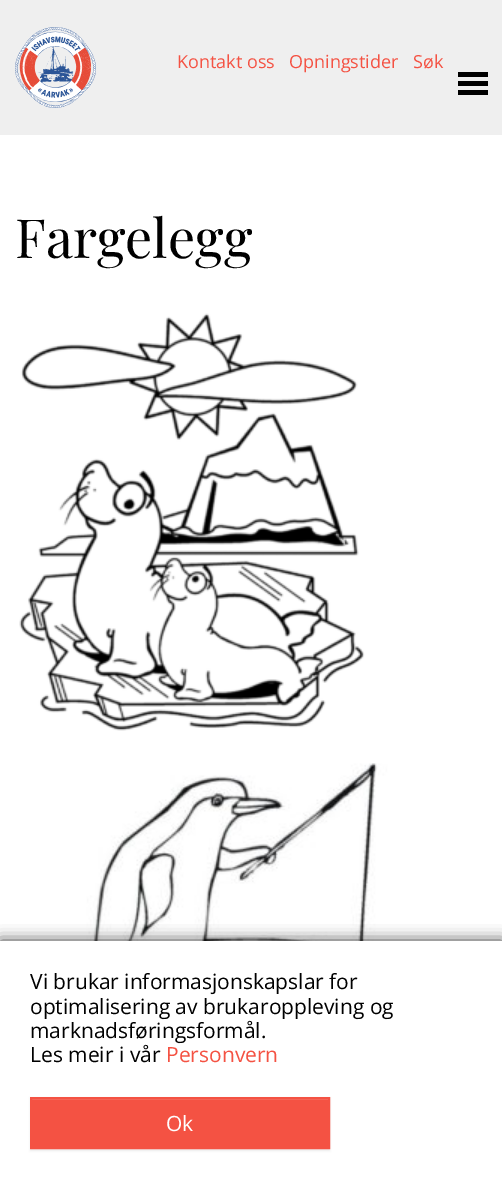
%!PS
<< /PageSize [502 1179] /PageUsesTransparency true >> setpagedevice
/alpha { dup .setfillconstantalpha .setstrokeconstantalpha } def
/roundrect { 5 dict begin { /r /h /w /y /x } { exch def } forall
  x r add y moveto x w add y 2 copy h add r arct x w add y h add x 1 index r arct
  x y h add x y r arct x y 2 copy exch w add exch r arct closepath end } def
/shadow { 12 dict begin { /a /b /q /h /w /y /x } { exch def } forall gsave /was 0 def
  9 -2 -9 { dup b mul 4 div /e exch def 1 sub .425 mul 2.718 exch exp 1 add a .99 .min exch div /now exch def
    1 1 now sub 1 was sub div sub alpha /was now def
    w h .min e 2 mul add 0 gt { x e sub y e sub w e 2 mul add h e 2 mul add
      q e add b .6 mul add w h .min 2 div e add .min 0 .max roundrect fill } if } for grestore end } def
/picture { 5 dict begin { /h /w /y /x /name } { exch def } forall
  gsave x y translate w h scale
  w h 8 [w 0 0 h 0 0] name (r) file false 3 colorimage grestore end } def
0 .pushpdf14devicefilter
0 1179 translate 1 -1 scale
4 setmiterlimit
1 setgray
0 0 502 1179 rectfill
0.937 setgray
0 0 502 135 rectfill
(img1.rgb) 15 27 81 81 picture
/OpenSans-Regular [18 0 0 -18 0 0] selectfont
0.957 0.322 0.263 setrgbcolor
177 68 moveto (Kontakt oss) show
289 68 moveto (Opningstider) show
413 68 moveto (Søk) show
0 setgray
458 72 30 5 rectfill
458 81 30 5 rectfill
458 90 30 5 rectfill
/PlayfairDisplay-Regular [54 0 0 -54 0 0] selectfont
15 258 moveto (Fargelegg) show
(img2.rgb) 19 313 346 418 picture
(img3.rgb) 15 763 450 178 picture
0 941 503 238 0 7.5 0.75 shadow
1 setgray
0 941 502 238 rectfill
/OpenSans-Regular [21 0 0 -21 0 0] selectfont
0 setgray
30 989 moveto (Vi brukar informasjonskapslar for) show
30 1014 moveto (optimalisering av brukaroppleving og) show
30 1038 moveto (marknadsføringsformål.) show
30 1062 moveto (Les meir i vår) show
0.957 0.322 0.263 setrgbcolor
166 1062 moveto (Personvern) show
0 setgray
30 1098 300 53 0 1 0.07 shadow
0.957 0.322 0.263 setrgbcolor
32 1100 296 47 rectfill
0.965 0.424 0.373 setrgbcolor
32 1099 297 1 rectfill
0.957 0.322 0.263 setrgbcolor
2 setlinewidth
31 1098 298 50 rectstroke
1 setgray
166 1131 moveto (Ok) show
.poppdf14devicefilter showpage
